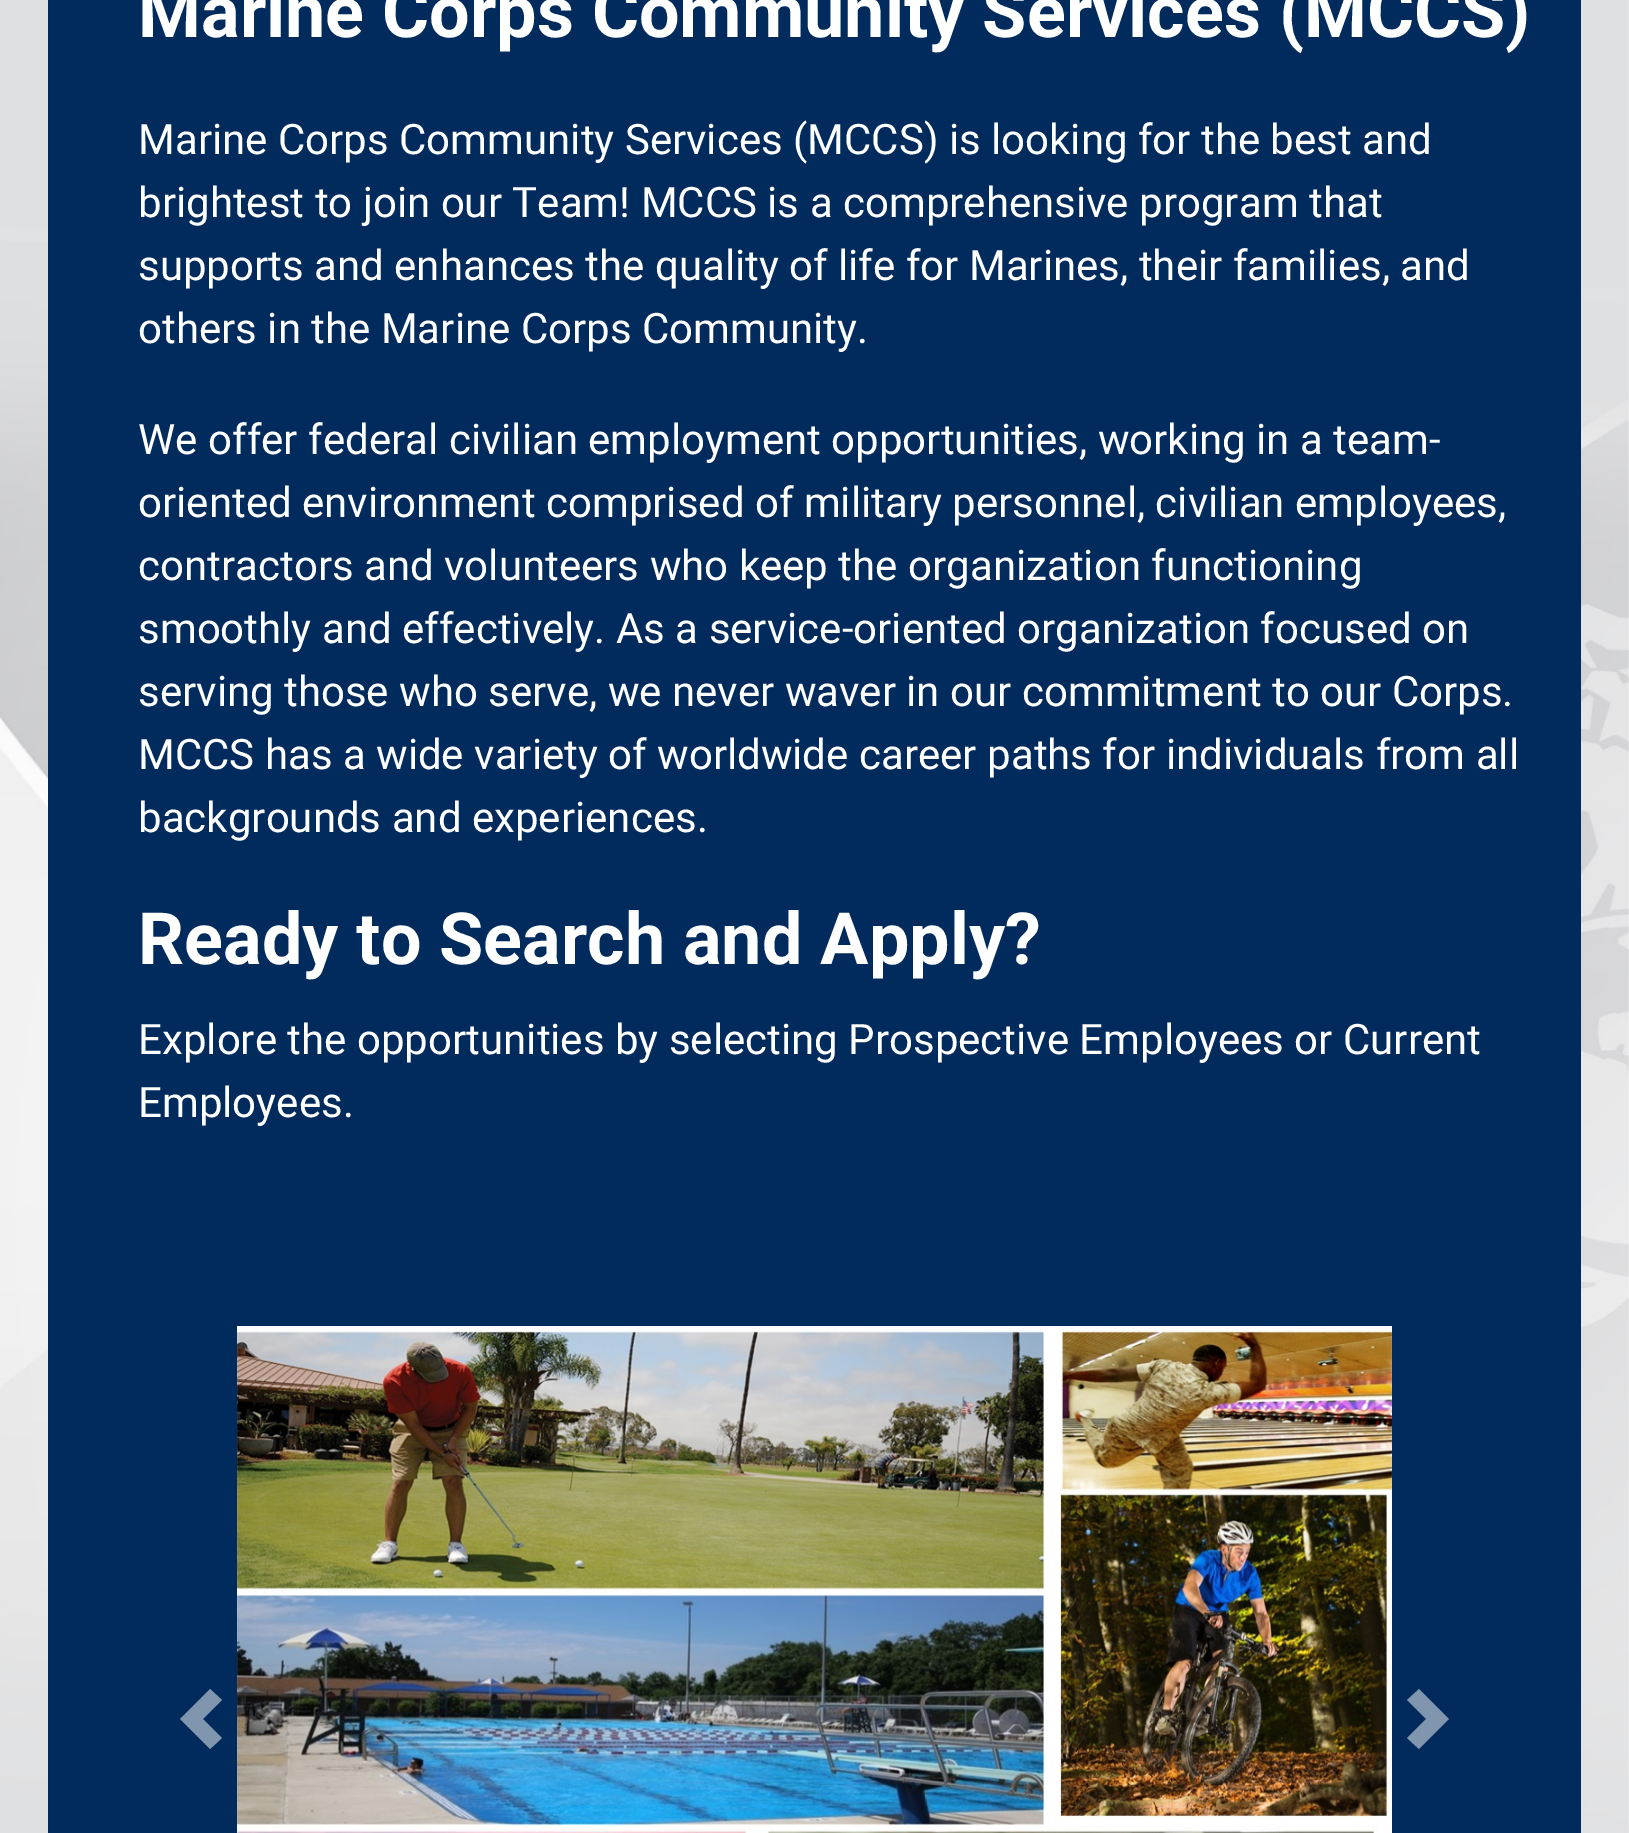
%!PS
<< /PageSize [1629 1833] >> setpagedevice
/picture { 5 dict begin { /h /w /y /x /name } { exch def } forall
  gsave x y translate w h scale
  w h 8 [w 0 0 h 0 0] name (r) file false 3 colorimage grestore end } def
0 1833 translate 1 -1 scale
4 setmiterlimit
1 setgray
0 0 1629 1833 rectfill
(img1.rgb) 0 0 1629 1833 picture
0 0.169 0.361 setrgbcolor
48 0 1533 1833 rectfill
/Roboto-Bold [72 0 0 -72 0 0] selectfont
1 setgray
138 37 moveto (Marine Corps Community Services \(MCCS\)) show
/Roboto-Regular [42 0 0 -42 0 0] selectfont
138 154 moveto (Marine Corps Community Services \(MCCS\) is looking for the best and) show
138 217 moveto (brightest to join our Team! MCCS is a comprehensive program that) show
138 280 moveto (supports and enhances the quality of life for Marines, their families, and) show
138 343 moveto (others in the Marine Corps Community.) show
138 454 moveto (We offer federal civilian employment opportunities, working in a team-) show
138 517 moveto (oriented environment comprised of military personnel, civilian employees,) show
138 580 moveto (contractors and volunteers who keep the organization functioning) show
138 643 moveto (smoothly and effectively. As a service-oriented organization focused on) show
138 706 moveto (serving those who serve, we never waver in our commitment to our Corps.) show
138 769 moveto (MCCS has a wide variety of worldwide career paths for individuals from all) show
138 832 moveto (backgrounds and experiences.) show
/Roboto-Bold [72 0 0 -72 0 0] selectfont
138 964 moveto (Ready to Search and Apply?) show
/Roboto-Regular [42 0 0 -42 0 0] selectfont
138 1054 moveto (Explore the opportunities by selecting Prospective Employees or Current) show
138 1117 moveto (Employees.) show
0.502 0.584 0.682 setrgbcolor
newpath 210 1689 moveto 180 1719 lineto 210 1749 lineto 222 1738 lineto 203 1719 lineto 222 1700 lineto closepath fill
(img2.rgb) 237 1326 1155 507 picture
newpath 1419 1689 moveto 1407 1700 lineto 1426 1719 lineto 1407 1738 lineto 1419 1749 lineto 1449 1719 lineto closepath fill
showpage
